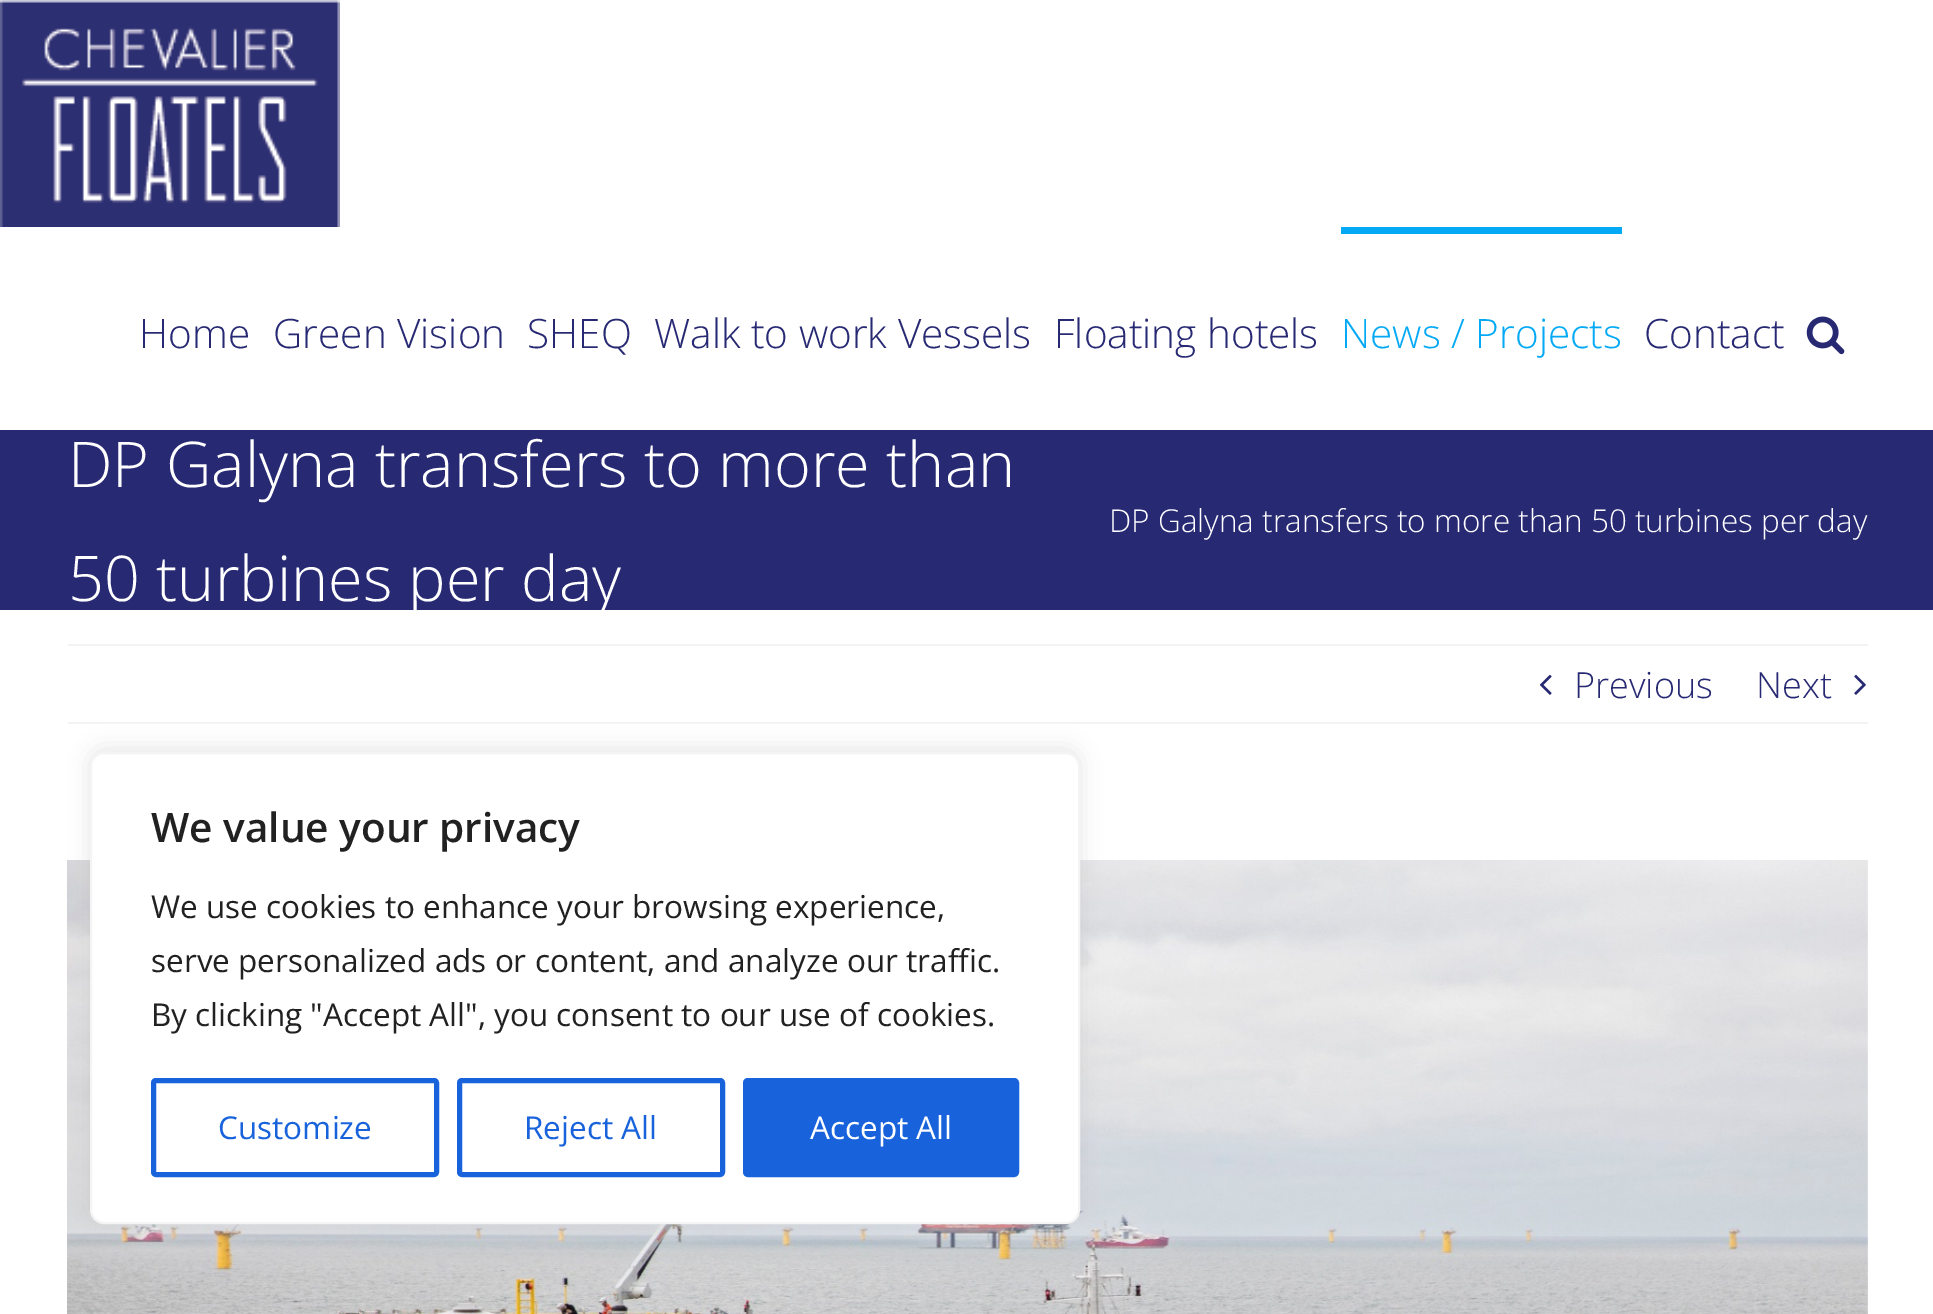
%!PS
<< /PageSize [1933 1314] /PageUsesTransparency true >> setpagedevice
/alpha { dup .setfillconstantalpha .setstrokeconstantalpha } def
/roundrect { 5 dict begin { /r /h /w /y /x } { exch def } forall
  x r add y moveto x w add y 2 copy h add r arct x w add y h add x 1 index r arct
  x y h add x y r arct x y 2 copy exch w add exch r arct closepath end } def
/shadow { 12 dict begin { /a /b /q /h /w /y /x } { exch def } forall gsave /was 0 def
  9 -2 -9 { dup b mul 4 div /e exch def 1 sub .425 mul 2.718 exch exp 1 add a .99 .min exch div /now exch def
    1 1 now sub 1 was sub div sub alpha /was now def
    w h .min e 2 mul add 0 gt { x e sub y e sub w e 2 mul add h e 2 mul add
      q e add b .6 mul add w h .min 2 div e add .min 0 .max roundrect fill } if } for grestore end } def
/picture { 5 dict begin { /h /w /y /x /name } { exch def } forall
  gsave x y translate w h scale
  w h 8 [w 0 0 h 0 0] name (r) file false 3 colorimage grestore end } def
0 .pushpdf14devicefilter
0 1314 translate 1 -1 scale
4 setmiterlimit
0.153 0.161 0.451 setrgbcolor
0 0 1933 1314 rectfill
1 setgray
0 0 1933 430 rectfill
(img1.rgb) 0 0 340 227 picture
/OpenSans-Light [40.5 0 0 -40.5 0 0] selectfont
0.153 0.161 0.451 setrgbcolor
139 348 moveto (Home) show
273 348 moveto (Green Vision) show
527 348 moveto (SHEQ) show
654 348 moveto (Walk to work Vessels) show
1054 348 moveto (Floating hotels) show
0.012 0.663 0.957 setrgbcolor
1341 227 281 7 rectfill
1341 348 moveto (News / Projects) show
0.153 0.161 0.451 setrgbcolor
1644 348 moveto (Contact) show
(img2.rgb) 1806 316 39 39 picture
/OpenSans-Light [63 0 0 -63 0 0] selectfont
1 setgray
68 487 moveto (DP Galyna transfers to more than) show
0 610 1933 704 rectfill
68 601 moveto (50 turbines per day) show
/OpenSans-Light [31.5 0 0 -31.5 0 0] selectfont
1109 532 moveto (DP Galyna transfers to more than 50 turbines per day) show
0.949 0.953 0.961 setrgbcolor
68 644 1800 2 rectfill
68 722 1800 2 rectfill
(img3.rgb) 1540 674 12 21 picture
/OpenSans-Light [36 0 0 -36 0 0] selectfont
0.153 0.161 0.451 setrgbcolor
1574 698 moveto (Previous) show
1756 698 moveto (Next) show
(img4.rgb) 1854 674 12 21 picture
(img5.rgb) 67 860 1801 454 picture
0.675 0.671 0.671 setrgbcolor
90 749 990 473 14 11 0.3 shadow
1 setgray
91 753 988 470 13 roundrect gsave fill grestore
0.957 setgray
2 setlinewidth
stroke
/OpenSans-SemiBold [40.5 0 0 -40.5 0 0] selectfont
0.129 setgray
151 842 moveto (We value your privacy) show
/OpenSans-Regular [31.5 0 0 -31.5 0 0] selectfont
151 918 moveto (We use cookies to enhance your browsing experience,) show
151 972 moveto (serve personalized ads or content, and analyze our traffic.) show
151 1026 moveto (By clicking "Accept All", you consent to our use of cookies.) show
0.094 0.388 0.863 setrgbcolor
5 setlinewidth
153.5 1080.5 283 94 2.5 roundrect stroke
218 1139 moveto (Customize) show
459.5 1080.5 263 94 2.5 roundrect stroke
524 1139 moveto (Reject All) show
745.5 1080.5 271 94 2.5 roundrect gsave fill grestore
stroke
1 setgray
810 1139 moveto (Accept All) show
.poppdf14devicefilter showpage
